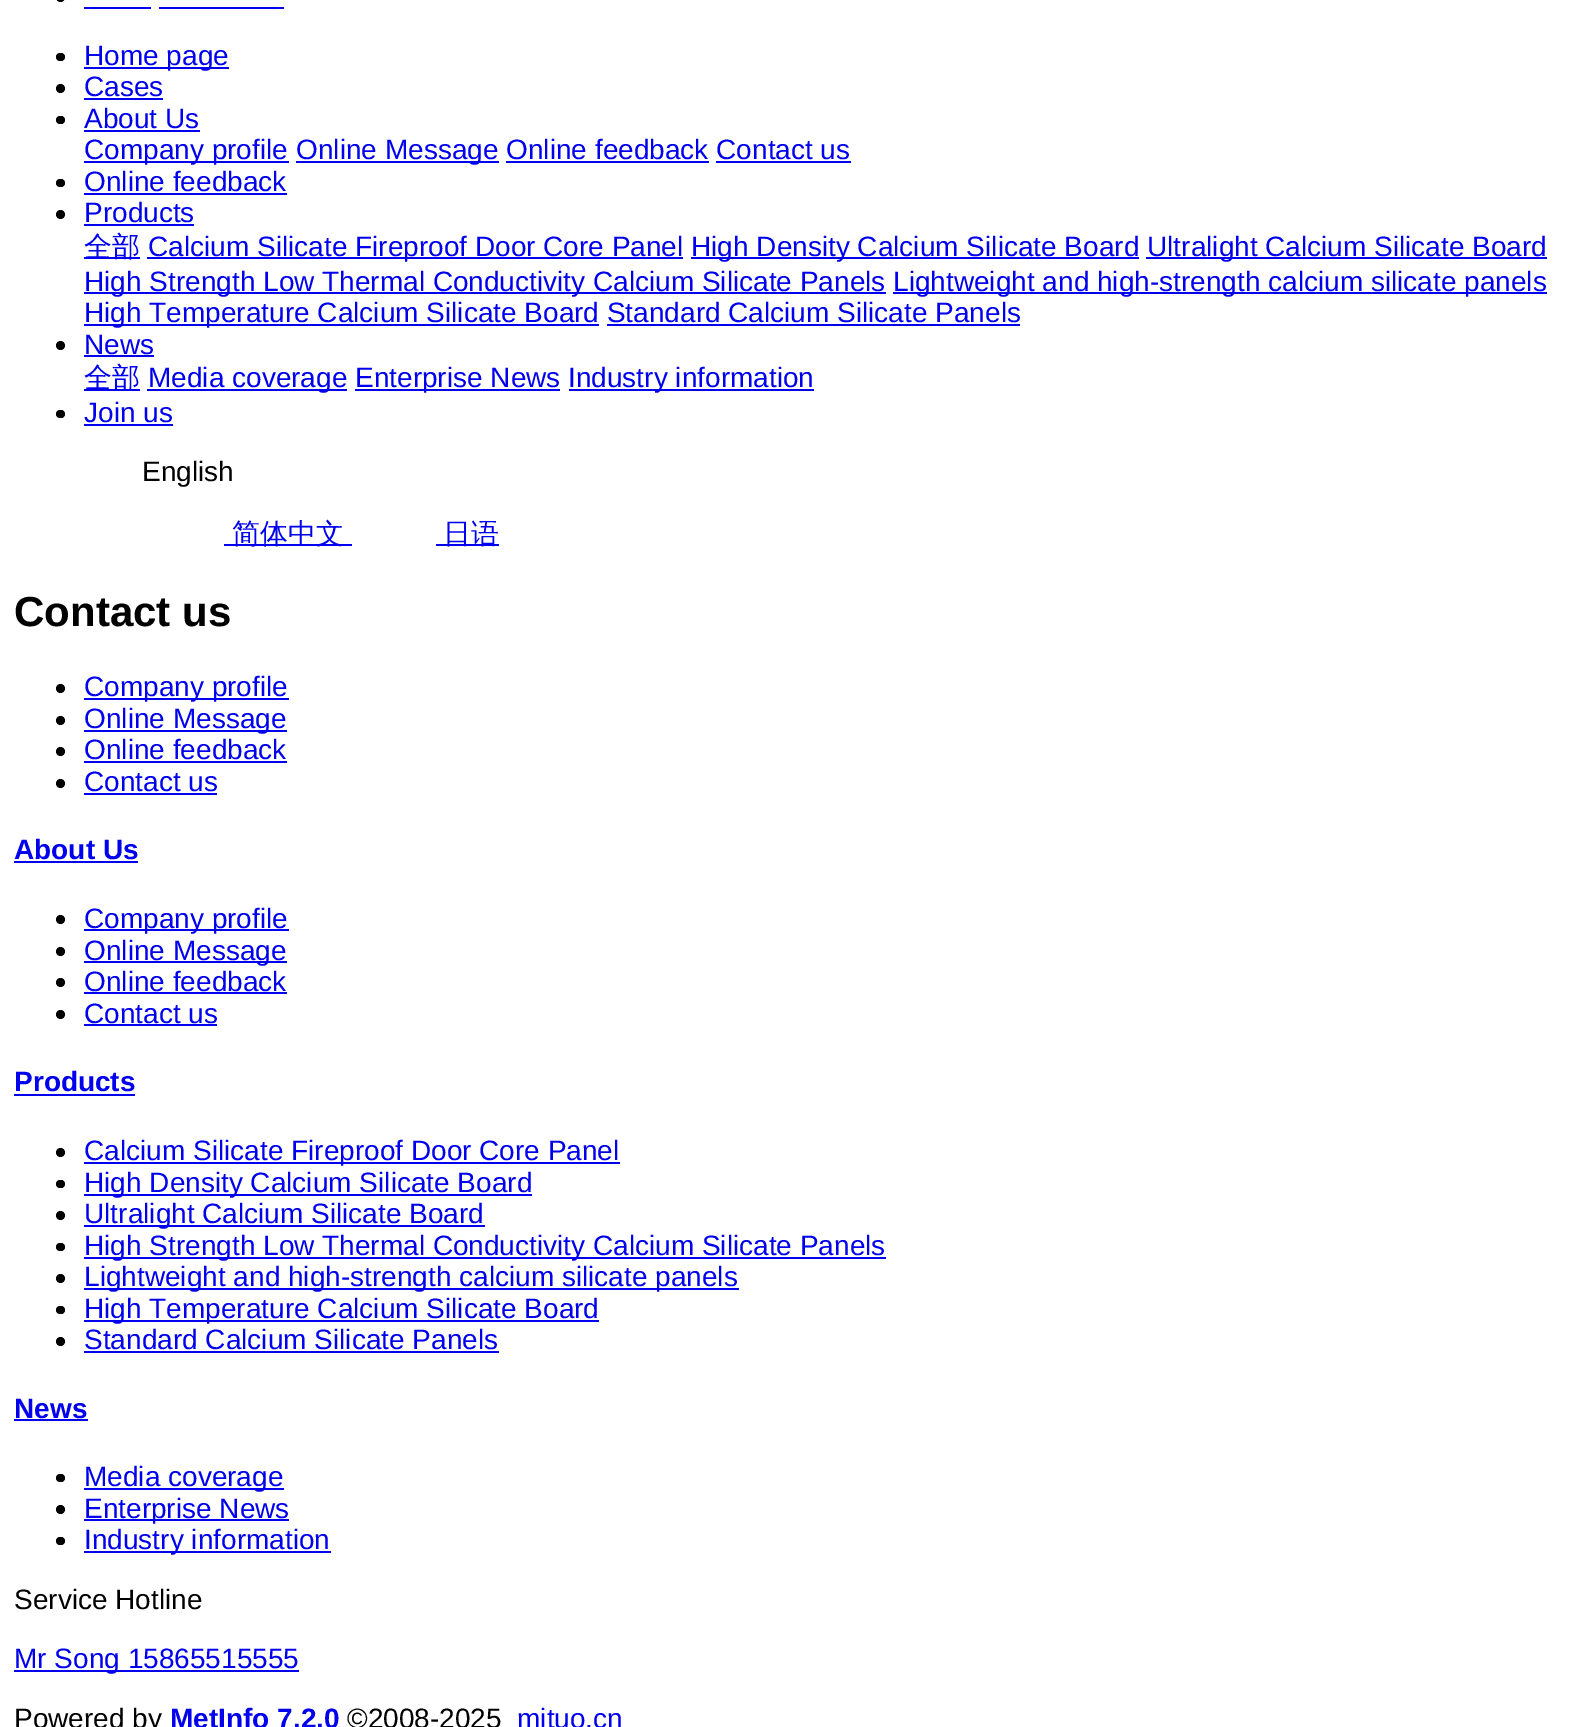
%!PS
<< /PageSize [1595 1727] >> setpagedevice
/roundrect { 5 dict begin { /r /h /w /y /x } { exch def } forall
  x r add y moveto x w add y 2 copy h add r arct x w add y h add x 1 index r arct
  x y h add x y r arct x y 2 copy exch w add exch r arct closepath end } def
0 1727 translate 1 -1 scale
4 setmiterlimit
1 setgray
0 0 1595 1727 rectfill
0 setgray
56 -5 9 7 4.5 roundrect fill
0 0 0.933 setrgbcolor
84 7 67 2 rectfill
159 7 125 2 rectfill
0 setgray
56 53 9 8 4 roundrect fill
0 0 0.933 setrgbcolor
84 67 145 2 rectfill
/LiberationSans-Regular [28 0 0 -28 0 0] selectfont
84 65 moveto (Home page) show
0 setgray
newpath 60.5 88.5 4.5 0 360 arc closepath fill
0 0 0.933 setrgbcolor
84 96 moveto (Cases) show
84 98 79 2 rectfill
0 setgray
56 116 9 8 4 roundrect fill
0 0 0.933 setrgbcolor
84 128 moveto (About Us) show
84 130 116 2 rectfill
84 161 205 2 rectfill
84 159 moveto (Company profile) show
296 161 203 2 rectfill
296 159 moveto (Online Message Online feedback Contact us) show
506 161 203 2 rectfill
716 161 135 2 rectfill
0 setgray
56 179 9 8 4 roundrect fill
0 0 0.933 setrgbcolor
84 191 moveto (Online feedback) show
84 193 203 2 rectfill
0 setgray
newpath 60.5 214.5 4.5 0 360 arc closepath fill
0 0 0.933 setrgbcolor
84 222 moveto (Products) show
84 224 110 2 rectfill
84 257 56 2 rectfill
/WenQuanYiZenHei-Medium [28 0 0 -28 0 0] selectfont
84 256 moveto (全部) show
147 257 536 2 rectfill
/LiberationSans-Regular [28 0 0 -28 0 0] selectfont
148 256 moveto (Calcium Silicate Fireproof Door Core Panel) show
691 257 448 2 rectfill
691 256 moveto (High Density Calcium Silicate Board) show
1146 257 401 2 rectfill
1147 256 moveto (Ultralight Calcium Silicate Board) show
84 292 802 2 rectfill
84 291 moveto (High Strength Low Thermal Conductivity Calcium Silicate Panels) show
893 292 654 2 rectfill
893 291 moveto (Lightweight and high-strength calcium silicate panels) show
84 324 515 2 rectfill
84 322 moveto (High Temperature Calcium Silicate Board Standard Calcium Silicate Panels) show
607 324 413 2 rectfill
0 setgray
newpath 60.5 345.5 4.5 0 360 arc closepath fill
0 0 0.933 setrgbcolor
84 354 moveto (News) show
84 355 70 2 rectfill
84 389 56 2 rectfill
/WenQuanYiZenHei-Medium [28 0 0 -28 0 0] selectfont
84 387 moveto (全部) show
147 389 200 2 rectfill
/LiberationSans-Regular [28 0 0 -28 0 0] selectfont
148 387 moveto (Media coverage) show
355 389 205 2 rectfill
355 387 moveto (Enterprise News) show
569 389 245 2 rectfill
568 387 moveto (Industry information) show
0 setgray
56 410 9 8 4 roundrect fill
0 0 0.933 setrgbcolor
84 422 moveto (Join us) show
84 424 89 2 rectfill
0 setgray
142 481 moveto (English) show
0 0 0.933 setrgbcolor
224 544 128 2 rectfill
/WenQuanYiZenHei-Medium [28 0 0 -28 0 0] selectfont
232 543 moveto (简体中文) show
436 544 63 2 rectfill
443 543 moveto (日语) show
/LiberationSans-Bold [42 0 0 -42 0 0] selectfont
0 setgray
14 626 moveto (Contact us) show
newpath 60.5 688.5 4.5 0 360 arc closepath fill
0 0 0.933 setrgbcolor
84 698 205 2 rectfill
/LiberationSans-Regular [28 0 0 -28 0 0] selectfont
84 696 moveto (Company profile) show
0 setgray
newpath 60.5 720.5 4.5 0 360 arc closepath fill
0 0 0.933 setrgbcolor
84 730 203 2 rectfill
84 728 moveto (Online Message) show
0 setgray
newpath 60.5 751.5 4.5 0 360 arc closepath fill
0 0 0.933 setrgbcolor
84 759 moveto (Online feedback) show
84 761 203 2 rectfill
0 setgray
newpath 60.5 783.5 4.5 0 360 arc closepath fill
0 0 0.933 setrgbcolor
84 791 moveto (Contact us) show
84 793 133 2 rectfill
/LiberationSans-Bold [28 0 0 -28 0 0] selectfont
14 859 moveto (About Us) show
14 861 124 2 rectfill
0 setgray
newpath 60.5 919.5 4.5 0 360 arc closepath fill
0 0 0.933 setrgbcolor
84 929 205 2 rectfill
/LiberationSans-Regular [28 0 0 -28 0 0] selectfont
84 928 moveto (Company profile) show
0 setgray
newpath 60.5 951.5 4.5 0 360 arc closepath fill
0 0 0.933 setrgbcolor
84 961 203 2 rectfill
84 960 moveto (Online Message) show
0 setgray
newpath 60.5 982.5 4.5 0 360 arc closepath fill
0 0 0.933 setrgbcolor
84 991 moveto (Online feedback) show
84 992 203 2 rectfill
0 setgray
newpath 60.5 1014.5 4.5 0 360 arc closepath fill
0 0 0.933 setrgbcolor
84 1023 moveto (Contact us) show
84 1024 133 2 rectfill
/LiberationSans-Bold [28 0 0 -28 0 0] selectfont
14 1091 moveto (Products) show
14 1094 121 2 rectfill
0 setgray
newpath 60.5 1152.5 4.5 0 360 arc closepath fill
0 0 0.933 setrgbcolor
84 1162 536 2 rectfill
/LiberationSans-Regular [28 0 0 -28 0 0] selectfont
84 1160 moveto (Calcium Silicate Fireproof Door Core Panel) show
0 setgray
56 1180 9 8 4 roundrect fill
0 0 0.933 setrgbcolor
84 1194 448 2 rectfill
84 1192 moveto (High Density Calcium Silicate Board) show
0 setgray
newpath 60.5 1215.5 4.5 0 360 arc closepath fill
0 0 0.933 setrgbcolor
84 1225 401 2 rectfill
84 1223 moveto (Ultralight Calcium Silicate Board) show
0 setgray
56 1243 9 8 4 roundrect fill
0 0 0.933 setrgbcolor
84 1257 802 2 rectfill
84 1255 moveto (High Strength Low Thermal Conductivity Calcium Silicate Panels) show
0 setgray
newpath 60.5 1278.5 4.5 0 360 arc closepath fill
0 0 0.933 setrgbcolor
84 1288 655 2 rectfill
84 1286 moveto (Lightweight and high-strength calcium silicate panels) show
0 setgray
56 1306 9 8 4 roundrect fill
0 0 0.933 setrgbcolor
84 1320 515 2 rectfill
84 1318 moveto (High Temperature Calcium Silicate Board) show
0 setgray
newpath 60.5 1341.5 4.5 0 360 arc closepath fill
0 0 0.933 setrgbcolor
84 1349 moveto (Standard Calcium Silicate Panels) show
84 1351 415 2 rectfill
/LiberationSans-Bold [28 0 0 -28 0 0] selectfont
14 1418 moveto (News) show
14 1419 74 2 rectfill
0 setgray
56 1474 9 8 4 roundrect fill
0 0 0.933 setrgbcolor
84 1488 200 2 rectfill
/LiberationSans-Regular [28 0 0 -28 0 0] selectfont
84 1486 moveto (Media coverage) show
0 setgray
newpath 60.5 1509.5 4.5 0 360 arc closepath fill
0 0 0.933 setrgbcolor
84 1519 205 2 rectfill
84 1518 moveto (Enterprise News) show
0 setgray
56 1537 9 8 4 roundrect fill
0 0 0.933 setrgbcolor
84 1551 247 2 rectfill
84 1549 moveto (Industry information) show
0 setgray
14 1609 moveto (Service Hotline) show
0 0 0.933 setrgbcolor
14 1670 285 2 rectfill
14 1668 moveto (Mr Song 15865515555) show
0 setgray
14 1728 moveto (Powered by) show
/LiberationSans-Bold [28 0 0 -28 0 0] selectfont
0 0 0.933 setrgbcolor
170 1728 moveto (MetInfo 7.2.0) show
/LiberationSans-Regular [28 0 0 -28 0 0] selectfont
0 setgray
347 1728 moveto (©2008-2025) show
0 0 0.933 setrgbcolor
517 1728 moveto (mituo.cn) show
showpage
